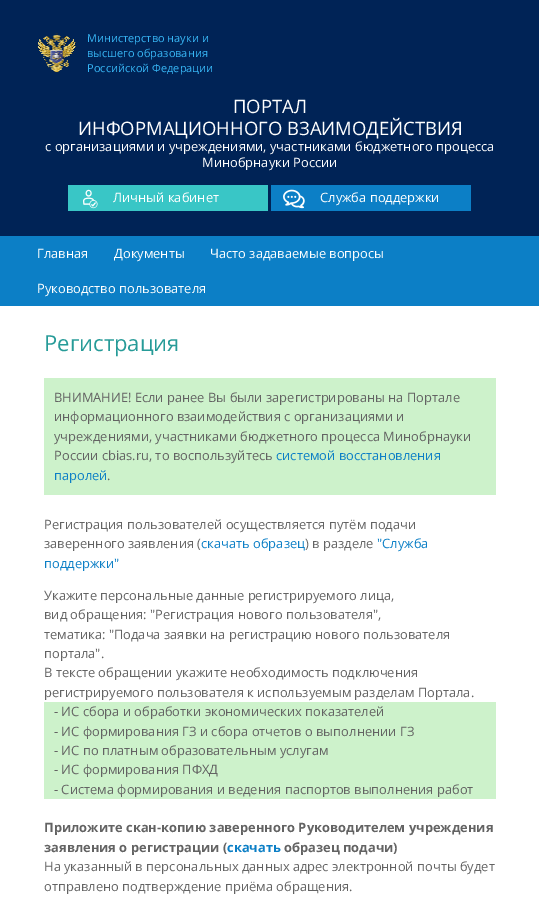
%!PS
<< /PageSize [539 903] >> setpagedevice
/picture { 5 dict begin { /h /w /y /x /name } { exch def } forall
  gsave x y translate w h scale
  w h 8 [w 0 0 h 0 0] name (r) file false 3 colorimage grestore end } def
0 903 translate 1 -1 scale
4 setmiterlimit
1 setgray
0 0 539 903 rectfill
0 0.137 0.337 setrgbcolor
0 0 539 236 rectfill
(img1.rgb) 37 33 39 40 picture
/OpenSans-Regular [11 0 0 -11 0 0] selectfont
0.216 0.71 0.957 setrgbcolor
87 42 moveto (Министерство науки и) show
87 57 moveto (высшего образования) show
87 72 moveto (Российской Федерации) show
/OpenSans-Regular [18.5 0 0 -18.5 0 0] selectfont
1 setgray
233 113 moveto (ПОРТАЛ) show
78 135 moveto (ИНФОРМАЦИОННОГО ВЗАИМОДЕЙСТВИЯ) show
/OpenSans-Regular [12.9 0 0 -12.9 0 0] selectfont
45 151 moveto (с организациями и учреждениями, участниками бюджетного процесса) show
202 167 moveto (Минобрнауки России) show
0.224 0.776 0.776 setrgbcolor
68 185 200 26 rectfill
(img2.rgb) 83 189 15 20 picture
1 setgray
113 202 moveto (Личный кабинет) show
0.047 0.498 0.776 setrgbcolor
271 185 200 26 rectfill
(img3.rgb) 283 189 22 20 picture
1 setgray
320 202 moveto (Служба поддержки) show
0.047 0.498 0.776 setrgbcolor
0 236 539 70 rectfill
1 setgray
37 258 moveto (Главная) show
114 258 moveto (Документы) show
210 258 moveto (Часто задаваемые вопросы) show
37 293 moveto (Руководство пользователя) show
/OpenSans-Regular [22 0 0 -22 0 0] selectfont
0.149 0.608 0.596 setrgbcolor
44 351 moveto (Регистрация) show
0.804 0.949 0.796 setrgbcolor
44 378 452 117 rectfill
/OpenSans-Regular [12.9 0 0 -12.9 0 0] selectfont
0.388 setgray
54 402 moveto (ВНИМАНИЕ! Если ранее Вы были зарегистрированы на Портале) show
54 421 moveto (информационного взаимодействия с организациями и) show
54 441 moveto (учреждениями, участниками бюджетного процесса Минобрнауки) show
54 460 moveto (России cbias.ru, то воспользуйтесь) show
0.047 0.498 0.776 setrgbcolor
276 460 moveto (системой восстановления) show
54 480 moveto (паролей) show
0.388 setgray
107 480 moveto (.) show
44 529 moveto (Регистрация пользователей осуществляется путём подачи) show
44 548 moveto (заверенного заявления \() show
0.047 0.498 0.776 setrgbcolor
201 548 moveto (скачать образец) show
0.388 setgray
305 548 moveto (\) в разделе) show
0.047 0.498 0.776 setrgbcolor
377 548 moveto ("Служба) show
44 568 moveto (поддержки") show
0.388 setgray
44 600 moveto (Укажите персональные данные регистрируемого лица,) show
44 619 moveto (вид обращения: "Регистрация нового пользователя",) show
44 639 moveto (тематика: "Подача заявки на регистрацию нового пользователя) show
44 658 moveto (портала".) show
44 677 moveto (В тексте обращении укажите необходимость подключения) show
44 697 moveto (регистрируемого пользователя к используемым разделам Портала.) show
0.804 0.949 0.796 setrgbcolor
44 702 452 97 rectfill
0.388 setgray
54 716 moveto (- ИС сбора и обработки экономических показателей) show
54 736 moveto (- ИС формирования ГЗ и сбора отчетов о выполнении ГЗ) show
54 755 moveto (- ИС по платным образовательным услугам) show
54 774 moveto (- ИС формирования ПФХД) show
54 794 moveto (- Система формирования и ведения паспортов выполнения работ) show
/OpenSans-Bold [12.9 0 0 -12.9 0 0] selectfont
44 832 moveto (Приложите скан-копию заверенного Руководителем учреждения) show
44 852 moveto (заявления о регистрации \() show
0.047 0.498 0.776 setrgbcolor
227 852 moveto (скачать) show
0.388 setgray
284 852 moveto (образец подачи\)) show
/OpenSans-Regular [12.9 0 0 -12.9 0 0] selectfont
44 871 moveto (На указанный в персональных данных адрес электронной почты будет) show
44 891 moveto (отправлено подтверждение приёма обращения.) show
showpage
